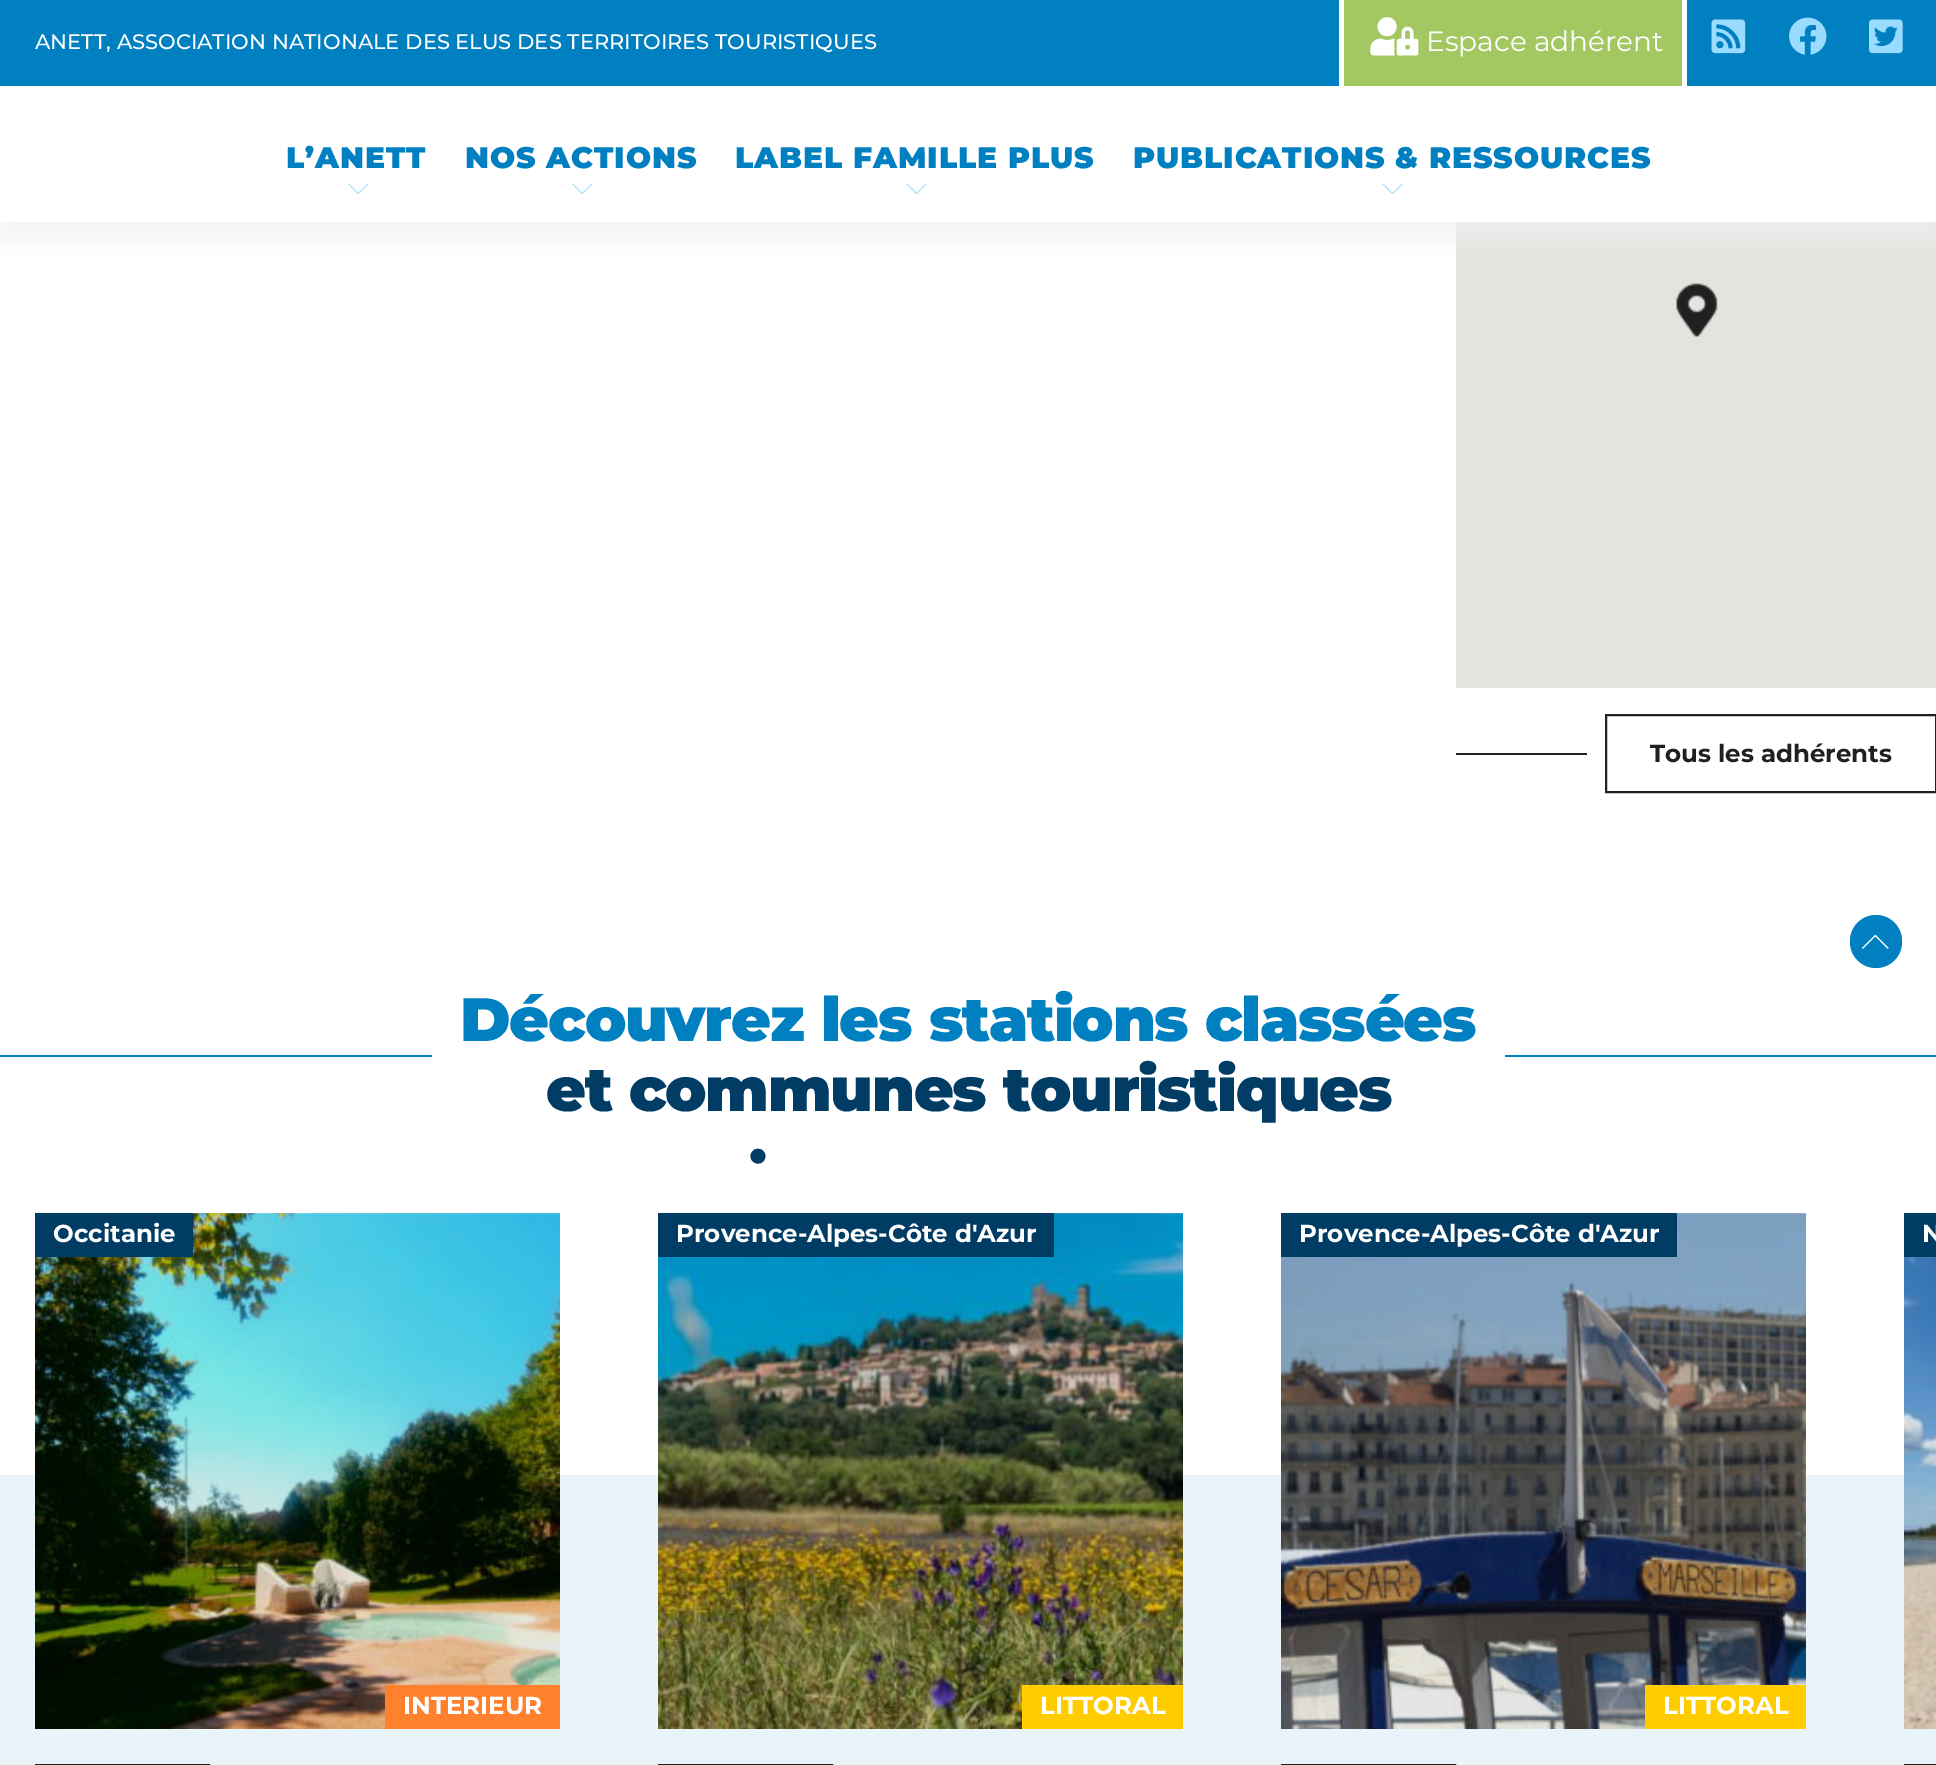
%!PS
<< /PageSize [1936 1765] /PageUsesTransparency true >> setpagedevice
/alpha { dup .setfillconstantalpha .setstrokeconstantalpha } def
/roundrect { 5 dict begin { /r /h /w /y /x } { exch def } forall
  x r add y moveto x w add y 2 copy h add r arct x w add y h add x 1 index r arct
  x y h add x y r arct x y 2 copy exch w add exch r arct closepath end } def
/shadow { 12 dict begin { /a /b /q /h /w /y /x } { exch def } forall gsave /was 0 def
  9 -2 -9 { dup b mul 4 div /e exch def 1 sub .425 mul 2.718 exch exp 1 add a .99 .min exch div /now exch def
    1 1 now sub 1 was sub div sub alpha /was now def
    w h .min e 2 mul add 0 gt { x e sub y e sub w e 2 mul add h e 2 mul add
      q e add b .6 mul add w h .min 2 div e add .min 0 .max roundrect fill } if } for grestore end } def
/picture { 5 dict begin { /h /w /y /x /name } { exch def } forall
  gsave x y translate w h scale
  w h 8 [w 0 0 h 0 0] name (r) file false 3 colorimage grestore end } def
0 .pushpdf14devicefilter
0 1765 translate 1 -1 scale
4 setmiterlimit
1 setgray
0 0 1936 1765 rectfill
0.898 0.89 0.875 setrgbcolor
1456 222 480 466 rectfill
0.941 setgray
0 16 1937 224 0 13 0.8 shadow
1 setgray
0 86 1936 136 rectfill
0 0.498 0.757 setrgbcolor
0 0 1936 86 rectfill
/Montserrat-Medium [21 0 0 -21 0 0] selectfont
1 setgray
35 49 moveto (ANETT, ASSOCIATION NATIONALE DES ELUS DES TERRITOIRES TOURISTIQUES) show
0.639 0.784 0.38 setrgbcolor
1344 0 338 86 rectfill
1 setgray
1682 0 5 86 rectfill
1339 0 5 86 rectfill
(img1.rgb) 1370 17 49 39 picture
/Montserrat-Regular [28 0 0 -28 0 0] selectfont
1426 51 moveto (Espace adhérent) show
(img2.rgb) 1711 19 35 35 picture
(img3.rgb) 1789 17 38 38 picture
(img4.rgb) 1869 19 34 35 picture
/Montserrat-Black [29.75 0 0 -29.75 0 0] selectfont
0 0.498 0.757 setrgbcolor
286 168 moveto 0.9 0 (L’ANETT) ashow
(img5.rgb) 348 183 21 11 picture
465 168 moveto 0.9 0 (NOS ACTIONS) ashow
(img5.rgb) 572 183 21 11 picture
735 168 moveto 0.9 0 (LABEL FAMILLE PLUS) ashow
(img6.rgb) 906 183 21 11 picture
1133 168 moveto 0.9 0 (PUBLICATIONS & RESSOURCES) ashow
(img6.rgb) 1382 183 21 11 picture
(img7.rgb) 1676 283 42 54 picture
0.125 setgray
1456 753 131 2 rectfill
2 setlinewidth
1606 715 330 77 rectstroke
/Montserrat-Bold [24.5 0 0 -24.5 0 0] selectfont
1650 762 moveto (Tous les adhérents) show
0 0.498 0.757 setrgbcolor
1850 915 52 53 26 roundrect fill
(img8.rgb) 1862 934 27 15 picture
/Montserrat-Black [61.25 0 0 -61.25 0 0] selectfont
460 1041 moveto -1.25 0 (Découvrez les stations classées) ashow
0 1055 432 2 rectfill
1505 1055 431 2 rectfill
0 0.235 0.392 setrgbcolor
546 1111 moveto -1.25 0 (et communes touristiques) ashow
/LiberationSerif-Regular [63 0 0 -63 0 0] selectfont
747 1177 moveto 2 0 (•) ashow
0.914 0.957 0.98 setrgbcolor
0 1475 1936 290 rectfill
(img9.rgb) 35 1213 525 516 picture
0 0.235 0.392 setrgbcolor
35 1213 158 44 rectfill
/Montserrat-Bold [24.5 0 0 -24.5 0 0] selectfont
1 setgray
53 1242 moveto (Occitanie) show
1 0.506 0.176 setrgbcolor
385 1685 175 44 rectfill
1 setgray
403 1714 moveto (INTERIEUR) show
0.125 setgray
36 1765 173 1 rectstroke
(img10.rgb) 658 1213 525 516 picture
0 0.235 0.392 setrgbcolor
658 1213 396 44 rectfill
1 setgray
676 1242 moveto (Provence-Alpes-Côte d'Azur) show
1 0.8 0 setrgbcolor
1022 1685 161 44 rectfill
1 setgray
1040 1714 moveto (LITTORAL) show
0.125 setgray
659 1765 173 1 rectstroke
(img11.rgb) 1281 1213 525 516 picture
0 0.235 0.392 setrgbcolor
1281 1213 396 44 rectfill
1 setgray
1299 1242 moveto (Provence-Alpes-Côte d'Azur) show
1 0.8 0 setrgbcolor
1645 1685 161 44 rectfill
1 setgray
1663 1714 moveto (LITTORAL) show
0.125 setgray
1282 1765 173 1 rectstroke
0 0.235 0.392 setrgbcolor
1904 1213 32 44 rectfill
1 setgray
1922 1242 moveto (N) show
(img12.rgb) 1904 1257 32 472 picture
0.125 setgray
1905 1765 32 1 rectstroke
.poppdf14devicefilter showpage
